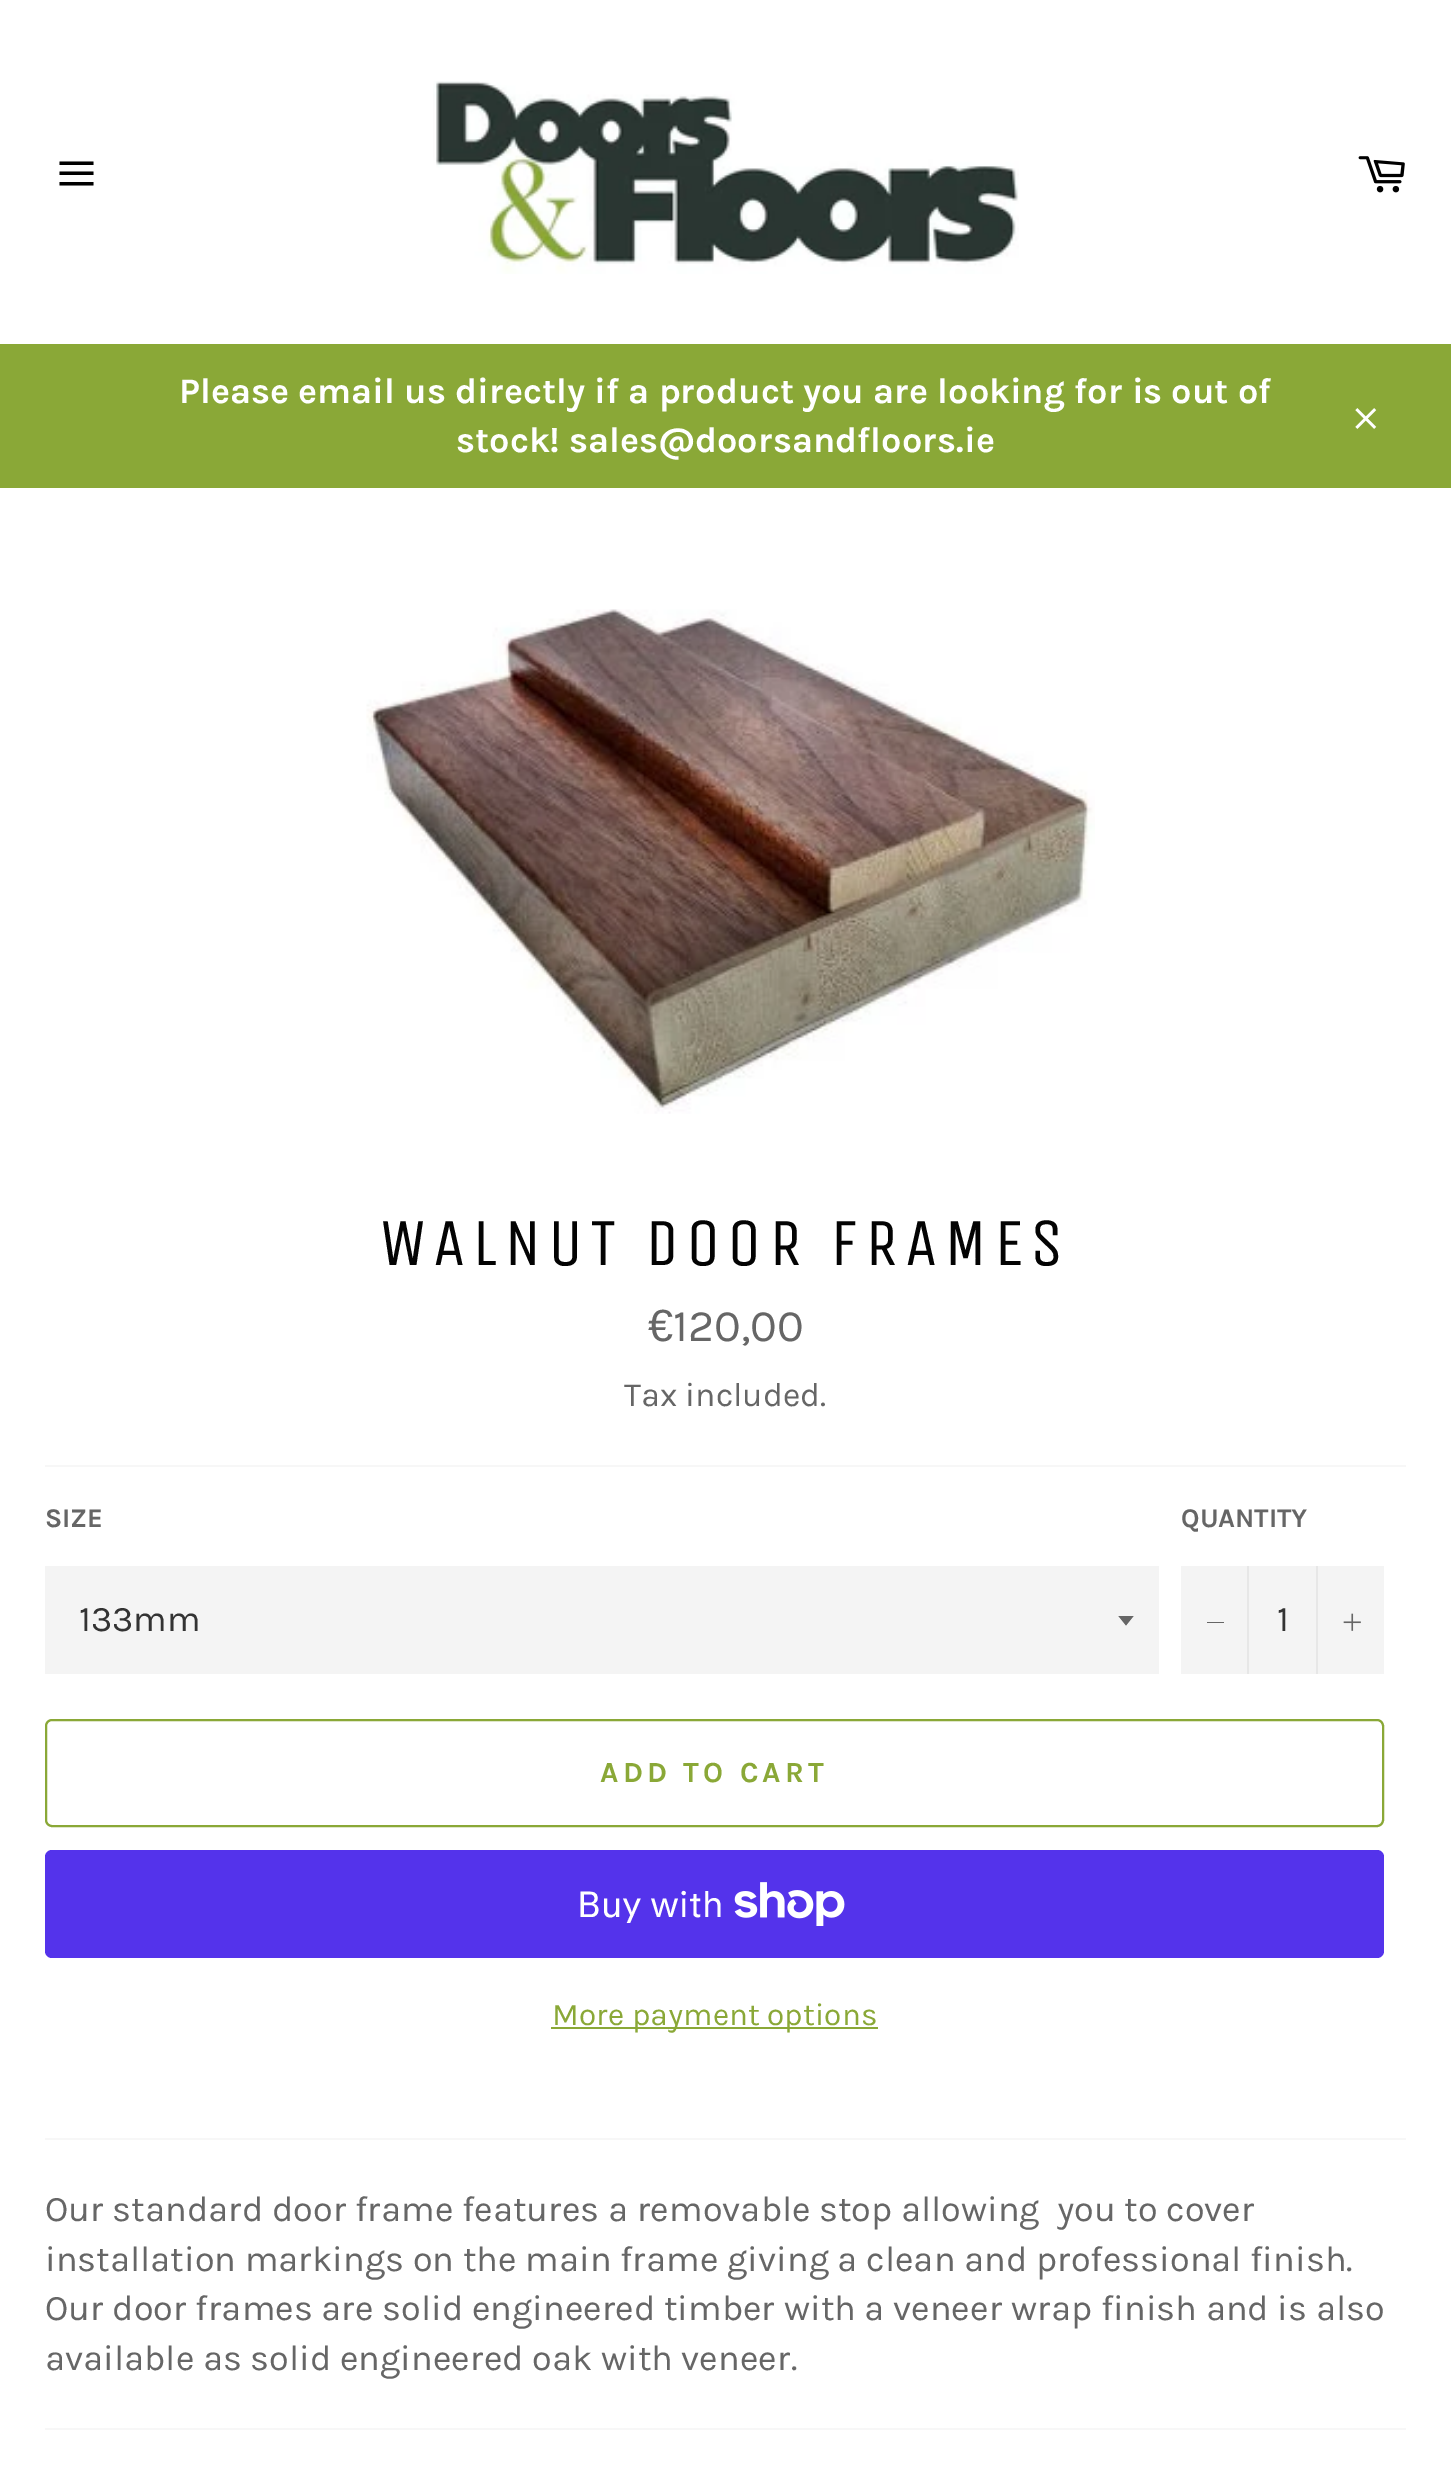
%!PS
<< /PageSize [1451 2465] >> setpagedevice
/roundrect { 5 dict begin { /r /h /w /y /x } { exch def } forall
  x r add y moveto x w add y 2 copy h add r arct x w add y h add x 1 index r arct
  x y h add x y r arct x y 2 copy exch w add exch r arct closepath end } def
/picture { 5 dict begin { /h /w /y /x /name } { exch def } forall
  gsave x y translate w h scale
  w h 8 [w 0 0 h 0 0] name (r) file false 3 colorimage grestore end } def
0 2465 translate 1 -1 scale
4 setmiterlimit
1 setgray
0 0 1451 2465 rectfill
0 setgray
newpath 59.5 171.5 moveto 93.5 171.5 lineto 93.5 175 lineto 59.5 175 lineto closepath 59.5 161.5 moveto 93.5 161.5 lineto 93.5 165 lineto 59.5 165 lineto closepath 59.5 182 moveto 93.5 182 lineto 93.5 185.5 lineto 59.5 185.5 lineto closepath fill
(img1.rgb) 433 81 586 193 picture
(img2.rgb) 1358 156 47 37 picture
0.541 0.659 0.216 setrgbcolor
0 344 1451 144 rectfill
/Karla-Bold [36 0 0 -36 0 0] selectfont
1 setgray
179 403 moveto (Please email us directly if a product you are looking for is out of) show
456 452 moveto (stock! sales@doorsandfloors.ie) show
(img3.rgb) 1355 408 22 21 picture
(img4.rgb) 366 609 729 505 picture
/UnicaOne-Regular [67.5 0 0 -67.5 0 0] selectfont
0.012 setgray
380 1265 moveto 6.75 0 (WALNUT DOOR FRAMES) ashow
/LiberationSans-Regular [45 0 0 -45 0 0] selectfont
0.4 setgray
648 1341 moveto (€) show
/Karla-Regular [45 0 0 -45 0 0] selectfont
673 1341 moveto (120,00) show
/Karla-Regular [33.75 0 0 -33.75 0 0] selectfont
624 1406 moveto (Tax included.) show
0.969 setgray
45 1465 1361 2 rectfill
/Karla-Bold [27 0 0 -27 0 0] selectfont
0.4 setgray
45 1527 moveto (SIZE) show
0.957 setgray
45 1566 1114 108 rectfill
gsave
1118 1616 18 11 rectclip
0.4 setgray
newpath 1118 1615.5 moveto 1126 1625.5 lineto 1134 1615.5 lineto closepath fill
grestore
/Karla-Regular [36 0 0 -36 0 0] selectfont
0.2 setgray
79 1631 moveto (133mm) show
/Karla-Bold [27 0 0 -27 0 0] selectfont
0.4 setgray
1181 1527 moveto (QUANTITY) show
0.957 setgray
1181 1566 203 108 rectfill
0.906 setgray
1247 1566 2 108 rectfill
0.4 setgray
1207 1622 17 1 rectfill
/Karla-Regular [36 0 0 -36 0 0] selectfont
0.2 setgray
1277 1631 moveto (1) show
0.906 setgray
1316 1566 2 108 rectfill
(img5.rgb) 1343 1613 18 18 picture
0.541 0.659 0.216 setrgbcolor
2 setlinewidth
46 1720 1337 106 6 roundrect stroke
/Karla-Bold [29.25 0 0 -29.25 0 0] selectfont
600 1782 moveto 4.4 0 (ADD TO CART) ashow
0.329 0.2 0.922 setrgbcolor
45 1850 1339 108 7 roundrect fill
/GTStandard-Regular [36 0 0 -36 0 0] selectfont
1 setgray
577 1917 moveto (Buy with) show
(img6.rgb) 734 1882 111 44 picture
0.541 0.659 0.216 setrgbcolor
551 2027 327 2 rectfill
/Karla-Regular [31.5 0 0 -31.5 0 0] selectfont
552 2025 moveto (More payment options) show
0.969 setgray
45 2138 1361 2 rectfill
/Karla-Regular [36 0 0 -36 0 0] selectfont
0.4 setgray
45 2221 moveto (Our standard door frame features a removable stop allowing  you to cover) show
45 2271 moveto (installation markings on the main frame giving a clean and professional finish.) show
45 2320 moveto (Our door frames are solid engineered timber with a veneer wrap finish and is also) show
45 2370 moveto (available as solid engineered oak with veneer.) show
0.969 setgray
45 2428 1361 2 rectfill
showpage
